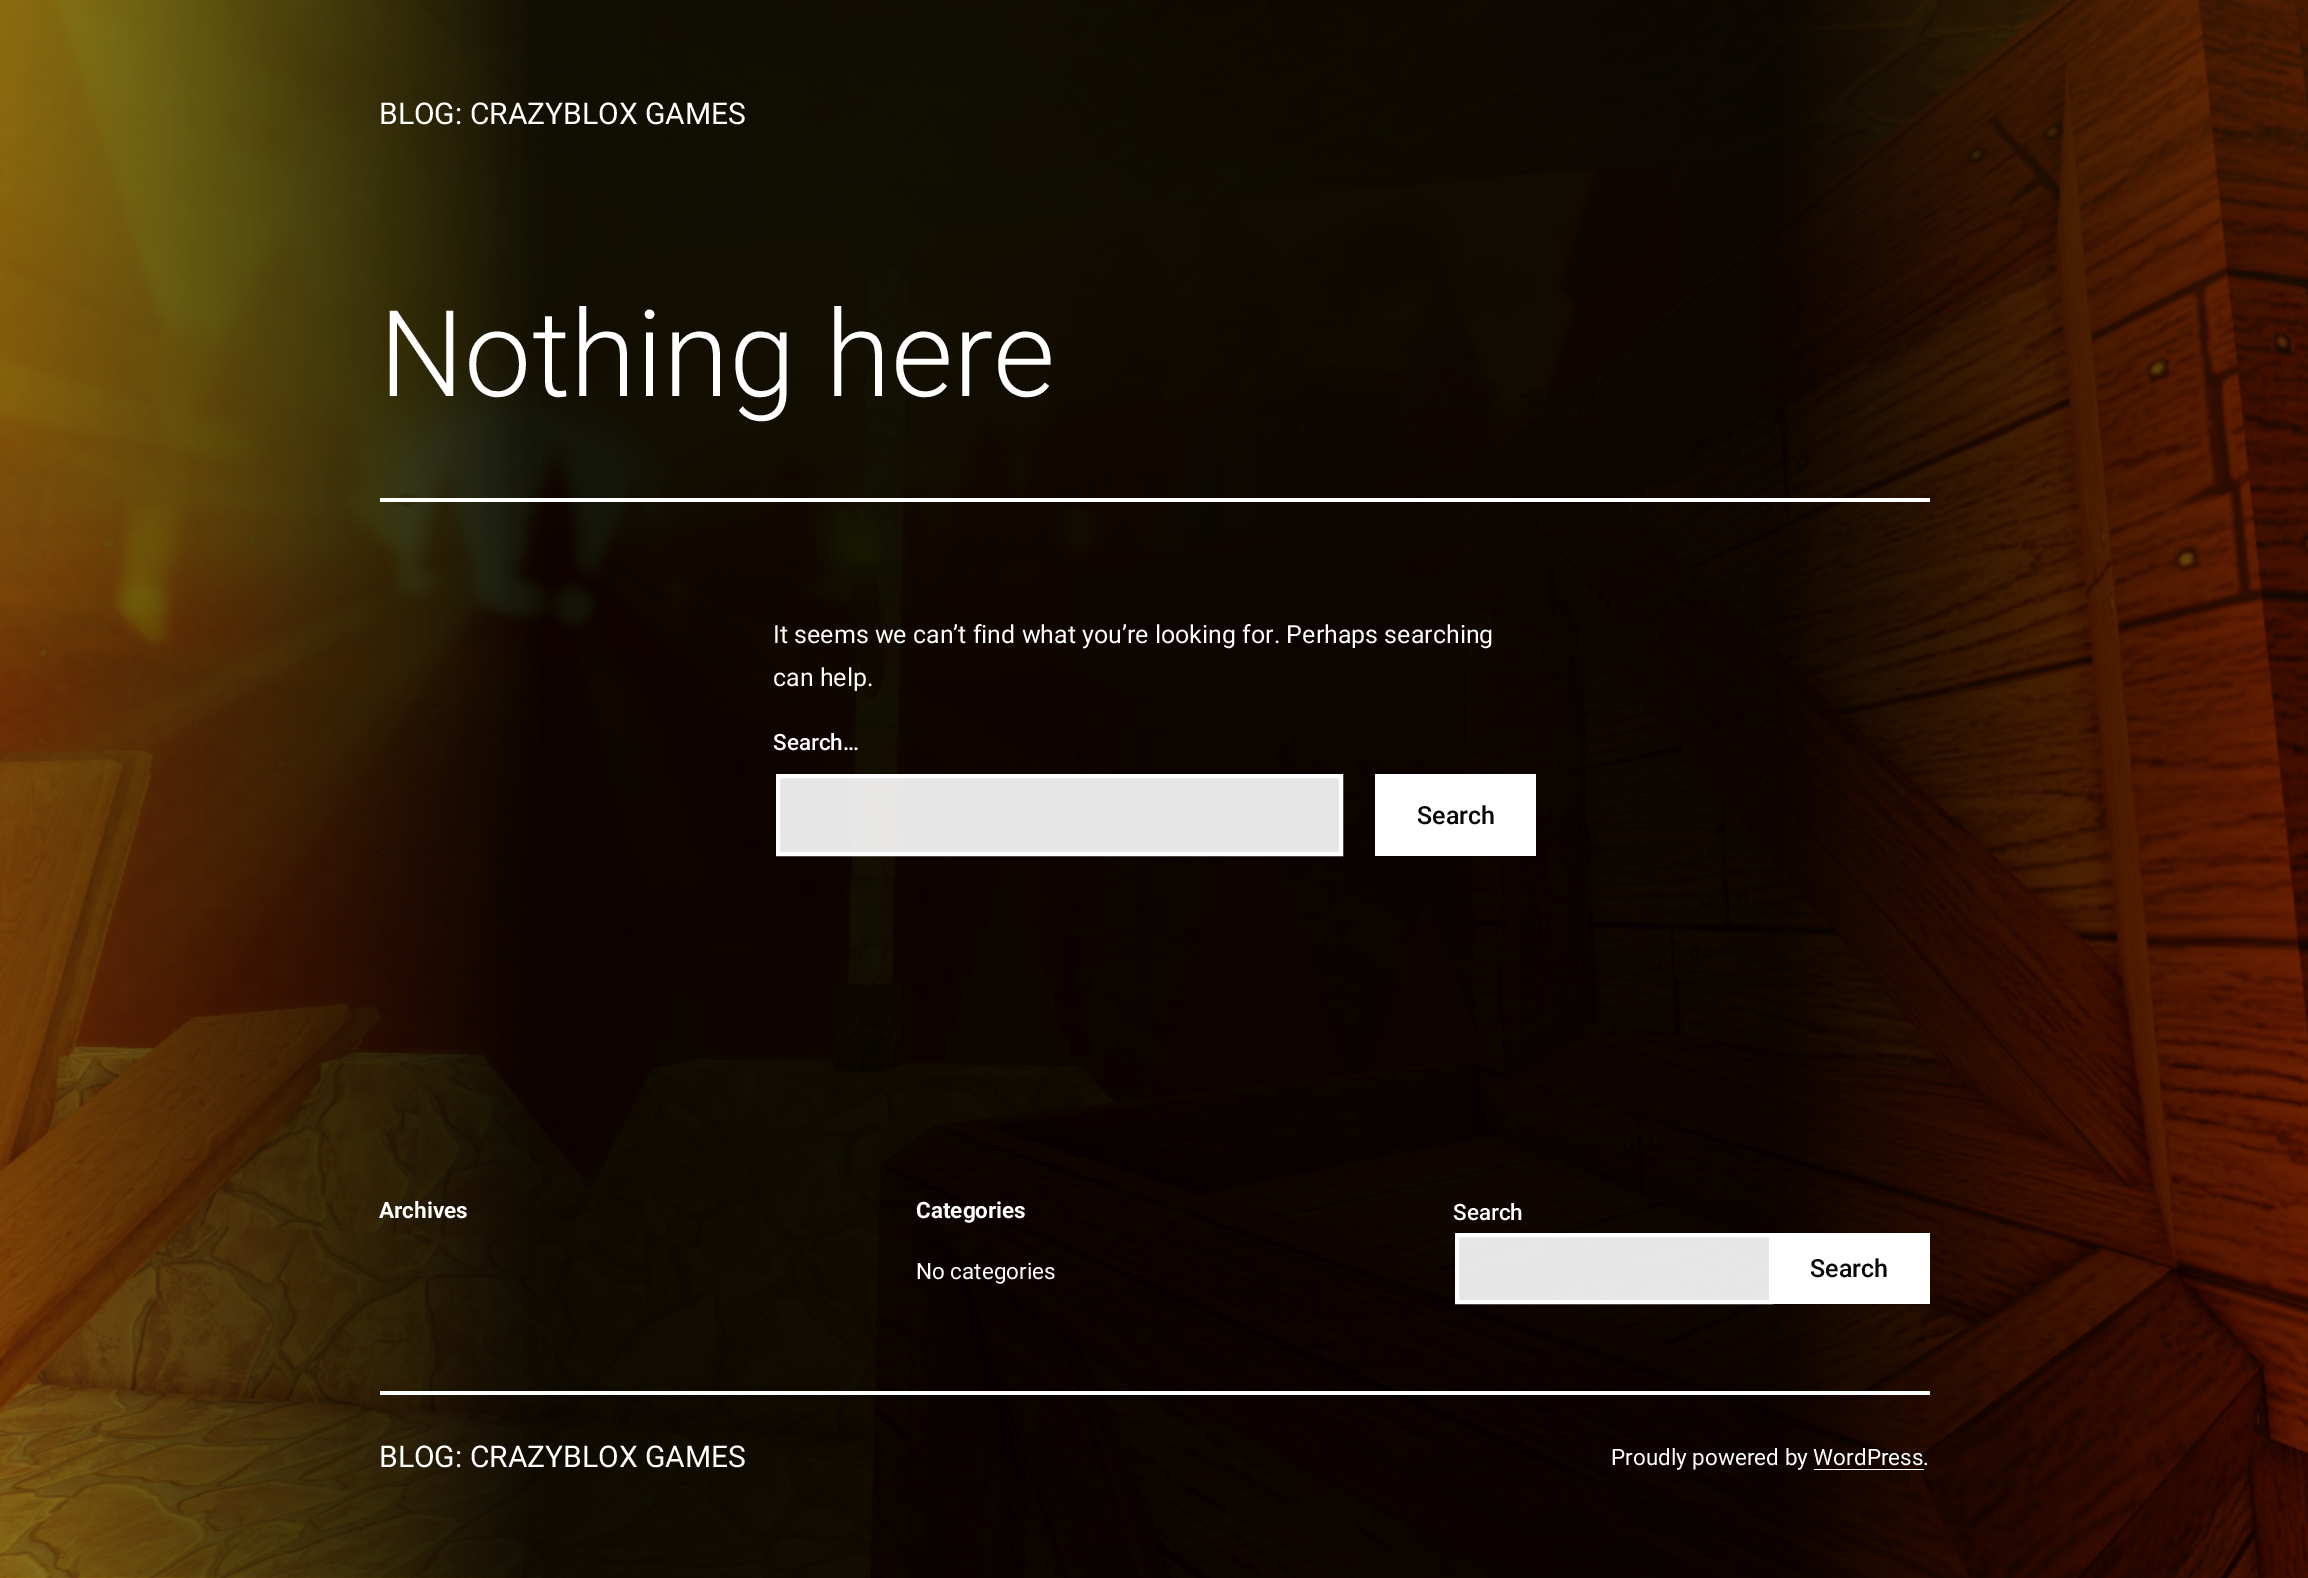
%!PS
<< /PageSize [2308 1578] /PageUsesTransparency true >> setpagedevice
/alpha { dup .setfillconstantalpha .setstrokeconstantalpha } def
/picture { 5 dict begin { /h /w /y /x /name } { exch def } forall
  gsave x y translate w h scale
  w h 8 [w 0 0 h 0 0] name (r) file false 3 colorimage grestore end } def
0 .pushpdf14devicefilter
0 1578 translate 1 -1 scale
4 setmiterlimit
1 setgray
0 0 2308 1578 rectfill
(img1.rgb) 0 0 2308 1578 picture
/Roboto-Regular [30 0 0 -30 0 0] selectfont
379 124 moveto (BLOG: CRAZYBLOX GAMES) show
380 498 1550 4 rectfill
/Roboto-Light [120 0 0 -120 0 0] selectfont
379 396 moveto (Nothing here) show
/Roboto-Regular [25 0 0 -25 0 0] selectfont
773 643 moveto (It seems we can’t find what you’re looking for. Perhaps searching) show
773 686 moveto (can help.) show
/Roboto-Medium [22.5 0 0 -22.5 0 0] selectfont
773 750 moveto (Search…) show
0.9 alpha
newpath 778 776 moveto 1341 776 lineto 1341 854 lineto 778 854 lineto closepath fill
1 alpha
4 setlinewidth
newpath 778 776 moveto 1341 776 lineto 1341 854 lineto 778 854 lineto closepath stroke
1375 774 161 82 rectfill
/Roboto-Medium [25 0 0 -25 0 0] selectfont
0.039 0.031 0.031 setrgbcolor
1417 824 moveto (Search) show
/Roboto-Bold [22.5 0 0 -22.5 0 0] selectfont
1 setgray
379 1218 moveto (Archives) show
916 1218 moveto (Categories) show
/Roboto-Regular [22.5 0 0 -22.5 0 0] selectfont
916 1279 moveto (No categories) show
/Roboto-Medium [22.5 0 0 -22.5 0 0] selectfont
1453 1220 moveto (Search) show
0.9 alpha
newpath 1457 1235 moveto 1771 1235 lineto 1771 1302 lineto 1457 1302 lineto closepath fill
1 alpha
newpath 1457 1235 moveto 1771 1235 lineto 1771 1302 lineto 1457 1302 lineto closepath stroke
1773 1233 157 71 rectfill
/Roboto-Medium [25 0 0 -25 0 0] selectfont
0.039 0.031 0.031 setrgbcolor
1810 1277 moveto (Search) show
1 setgray
380 1391 1550 4 rectfill
/Roboto-Regular [30 0 0 -30 0 0] selectfont
379 1467 moveto (BLOG: CRAZYBLOX GAMES) show
/Roboto-Regular [22.5 0 0 -22.5 0 0] selectfont
1611 1465 moveto (Proudly powered by WordPress.) show
1814 1469 110 1 rectfill
.poppdf14devicefilter showpage
